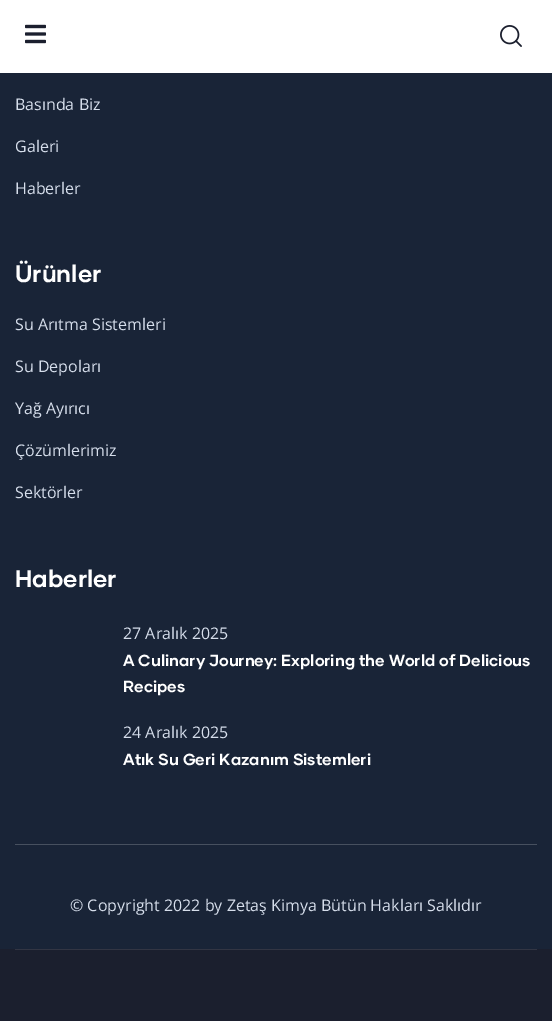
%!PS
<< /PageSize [552 1021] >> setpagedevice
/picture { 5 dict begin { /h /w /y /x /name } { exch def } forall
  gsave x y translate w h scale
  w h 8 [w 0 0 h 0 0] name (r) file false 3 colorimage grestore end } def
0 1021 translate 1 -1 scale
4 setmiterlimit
0.106 0.122 0.18 setrgbcolor
0 0 552 1021 rectfill
1 setgray
0 0 552 73 rectfill
(img1.rgb) 25 24 21 20 picture
(img2.rgb) 500 25 22 22 picture
0.098 0.141 0.216 setrgbcolor
0 73 552 876 rectfill
/OpenSans-Regular [16 0 0 -16 0 0] selectfont
0.839 0.871 0.922 setrgbcolor
15 110 moveto (Basında Biz) show
15 152 moveto (Galeri) show
15 194 moveto (Haberler) show
/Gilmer-Bold [24 0 0 -24 0 0] selectfont
1 setgray
15 282 moveto (Ürünler) show
/OpenSans-Regular [16 0 0 -16 0 0] selectfont
0.839 0.871 0.922 setrgbcolor
15 330 moveto (Su Arıtma Sistemleri) show
15 372 moveto (Su Depoları) show
15 414 moveto (Yağ Ayırıcı) show
15 456 moveto (Çözümlerimiz) show
15 498 moveto (Sektörler) show
/Gilmer-Bold [24 0 0 -24 0 0] selectfont
1 setgray
15 587 moveto (Haberler) show
/OpenSans-Regular [16 0 0 -16 0 0] selectfont
0.839 0.871 0.922 setrgbcolor
123 639 moveto (27 Aralık 2025) show
/Gilmer-Bold [16 0 0 -16 0 0] selectfont
1 setgray
123 666 moveto (A Culinary Journey: Exploring the World of Delicious) show
123 692 moveto (Recipes) show
/OpenSans-Regular [16 0 0 -16 0 0] selectfont
0.839 0.871 0.922 setrgbcolor
123 738 moveto (24 Aralık 2025) show
/Gilmer-Bold [16 0 0 -16 0 0] selectfont
1 setgray
123 765 moveto (Atık Su Geri Kazanım Sistemleri) show
0.278 0.314 0.373 setrgbcolor
15 844 522 1 rectfill
/OpenSans-Regular [16 0 0 -16 0 0] selectfont
0.839 0.871 0.922 setrgbcolor
70 911 moveto (© Copyright 2022 by Zetaş Kimya Bütün Hakları Saklıdır) show
0.196 0.208 0.263 setrgbcolor
15 949 522 1 rectfill
showpage
